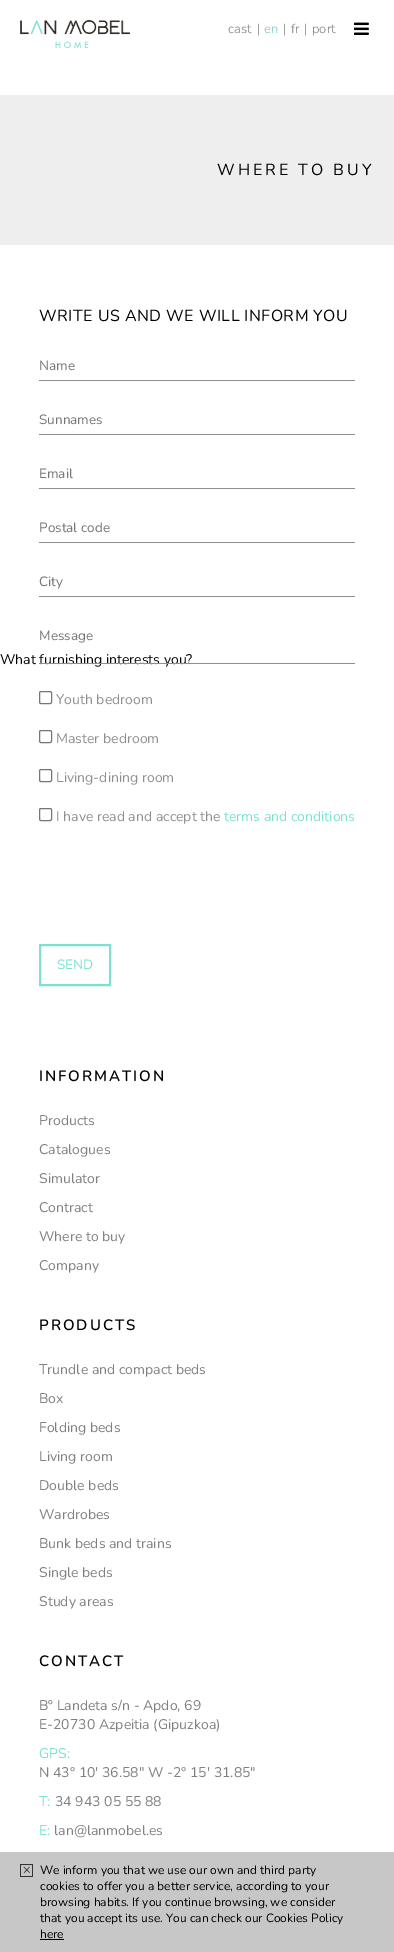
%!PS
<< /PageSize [394 1952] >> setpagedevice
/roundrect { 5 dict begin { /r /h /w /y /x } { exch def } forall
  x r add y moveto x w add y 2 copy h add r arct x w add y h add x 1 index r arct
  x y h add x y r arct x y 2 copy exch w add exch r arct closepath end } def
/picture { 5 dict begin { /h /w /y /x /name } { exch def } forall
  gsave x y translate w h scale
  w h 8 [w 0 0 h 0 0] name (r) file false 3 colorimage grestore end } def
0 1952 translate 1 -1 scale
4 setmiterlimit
1 setgray
0 0 394 1952 rectfill
(img1.rgb) 20 20 110 28 picture
/Nunito-Light [13 0 0 -13 0 0] selectfont
0.502 setgray
228 33 moveto (cast) show
257 33 moveto (|) show
0.506 0.773 0.757 setrgbcolor
264 33 moveto (en) show
0.502 setgray
283 33 moveto (|) show
291 33 moveto (fr) show
304 33 moveto (|) show
312 33 moveto (port) show
(img2.rgb) 354 22 15 13 picture
0.933 setgray
0 95 394 150 rectfill
/Nunito-Regular [16 0 0 -16 0 0] selectfont
0 setgray
217 175 moveto 3 0 (WHERE TO BUY) ashow
39 321 moveto 0.5 0 (WRITE US AND WE WILL INFORM YOU) ashow
0.561 setgray
39 380 316 1 rectfill
/Nunito-Regular [13.5 0 0 -13.5 0 0] selectfont
0.459 setgray
39 370 moveto (Name) show
0.561 setgray
39 434 316 1 rectfill
0.459 setgray
39 424 moveto (Sunnames) show
0.561 setgray
39 488 316 1 rectfill
0.459 setgray
39 478 moveto (Email) show
0.561 setgray
39 542 316 1 rectfill
0.459 setgray
39 532 moveto (Postal code) show
0.561 setgray
39 596 316 1 rectfill
0.459 setgray
39 586 moveto (City) show
/Nunito-Regular [14 0 0 -14 0 0] selectfont
0 setgray
0 664 moveto (What furnishing interests you?) show
0.561 setgray
39 663 316 1 rectfill
/Nunito-Regular [13.5 0 0 -13.5 0 0] selectfont
0.459 setgray
39 640 moveto (Message) show
0.463 setgray
39.5 691.5 12 12 1.5 roundrect stroke
/Nunito-Regular [14 0 0 -14 0 0] selectfont
0.561 setgray
56 704 moveto (Youth bedroom) show
0.463 setgray
39.5 730.5 12 12 1.5 roundrect stroke
0.561 setgray
56 743 moveto (Master bedroom) show
0.463 setgray
39.5 769.5 12 12 1.5 roundrect stroke
0.561 setgray
56 782 moveto (Living-dining room) show
0.463 setgray
39.5 808.5 12 12 1.5 roundrect stroke
0.561 setgray
56 821 moveto (I have read and accept the) show
0.486 0.878 0.827 setrgbcolor
224 821 moveto (terms and conditions) show
2 setlinewidth
40 945 70 40 rectstroke
/Nunito-Regular [13.5 0 0 -13.5 0 0] selectfont
57 969 moveto (SEND) show
/Nunito-SemiBold [15 0 0 -15 0 0] selectfont
0 setgray
39 1081 moveto 2 0 (INFORMATION) ashow
/Nunito-Regular [14 0 0 -14 0 0] selectfont
0.502 setgray
39 1125 moveto (Products) show
39 1154 moveto (Catalogues) show
39 1183 moveto (Simulator) show
39 1212 moveto (Contract) show
39 1241 moveto (Where to buy) show
39 1270 moveto (Company) show
/Nunito-SemiBold [15 0 0 -15 0 0] selectfont
0 setgray
39 1330 moveto 2 0 (PRODUCTS) ashow
/Nunito-Regular [14 0 0 -14 0 0] selectfont
0.502 setgray
39 1374 moveto (Trundle and compact beds) show
39 1403 moveto (Box) show
39 1432 moveto (Folding beds) show
39 1461 moveto (Living room) show
39 1490 moveto (Double beds) show
39 1519 moveto (Wardrobes) show
39 1548 moveto (Bunk beds and trains) show
39 1577 moveto (Single beds) show
39 1606 moveto (Study areas) show
/Nunito-SemiBold [15 0 0 -15 0 0] selectfont
0 setgray
39 1666 moveto 2 0 (CONTACT) ashow
/Nunito-Regular [14 0 0 -14 0 0] selectfont
0.502 setgray
39 1710 moveto (Bº Landeta s/n - Apdo, 69) show
39 1729 moveto (E-20730 Azpeitia \(Gipuzkoa\)) show
0.486 0.878 0.827 setrgbcolor
39 1758 moveto (GPS:) show
0.502 setgray
39 1777 moveto (N 43° 10' 36.58" W -2° 15' 31.85") show
0.486 0.878 0.827 setrgbcolor
39 1806 moveto (T:) show
0.502 setgray
55 1806 moveto (34 943 05 55 88) show
0.486 0.878 0.827 setrgbcolor
39 1835 moveto (E:) show
0.502 setgray
54 1835 moveto (lan@lanmobel.es) show
0.78 setgray
0 1852 394 100 rectfill
(img3.rgb) 20 1864 13 13 picture
/Nunito-Regular [12 0 0 -12 0 0] selectfont
0 setgray
40 1874 moveto (We inform you that we use our own and third party) show
40 1890 moveto (cookies to offer you a better service, according to your) show
40 1906 moveto (browsing habits. If you continue browsing, we consider) show
40 1922 moveto (that you accept its use. You can check our Cookies Policy) show
40 1938 moveto (here) show
40 1939 24 1 rectfill
showpage
